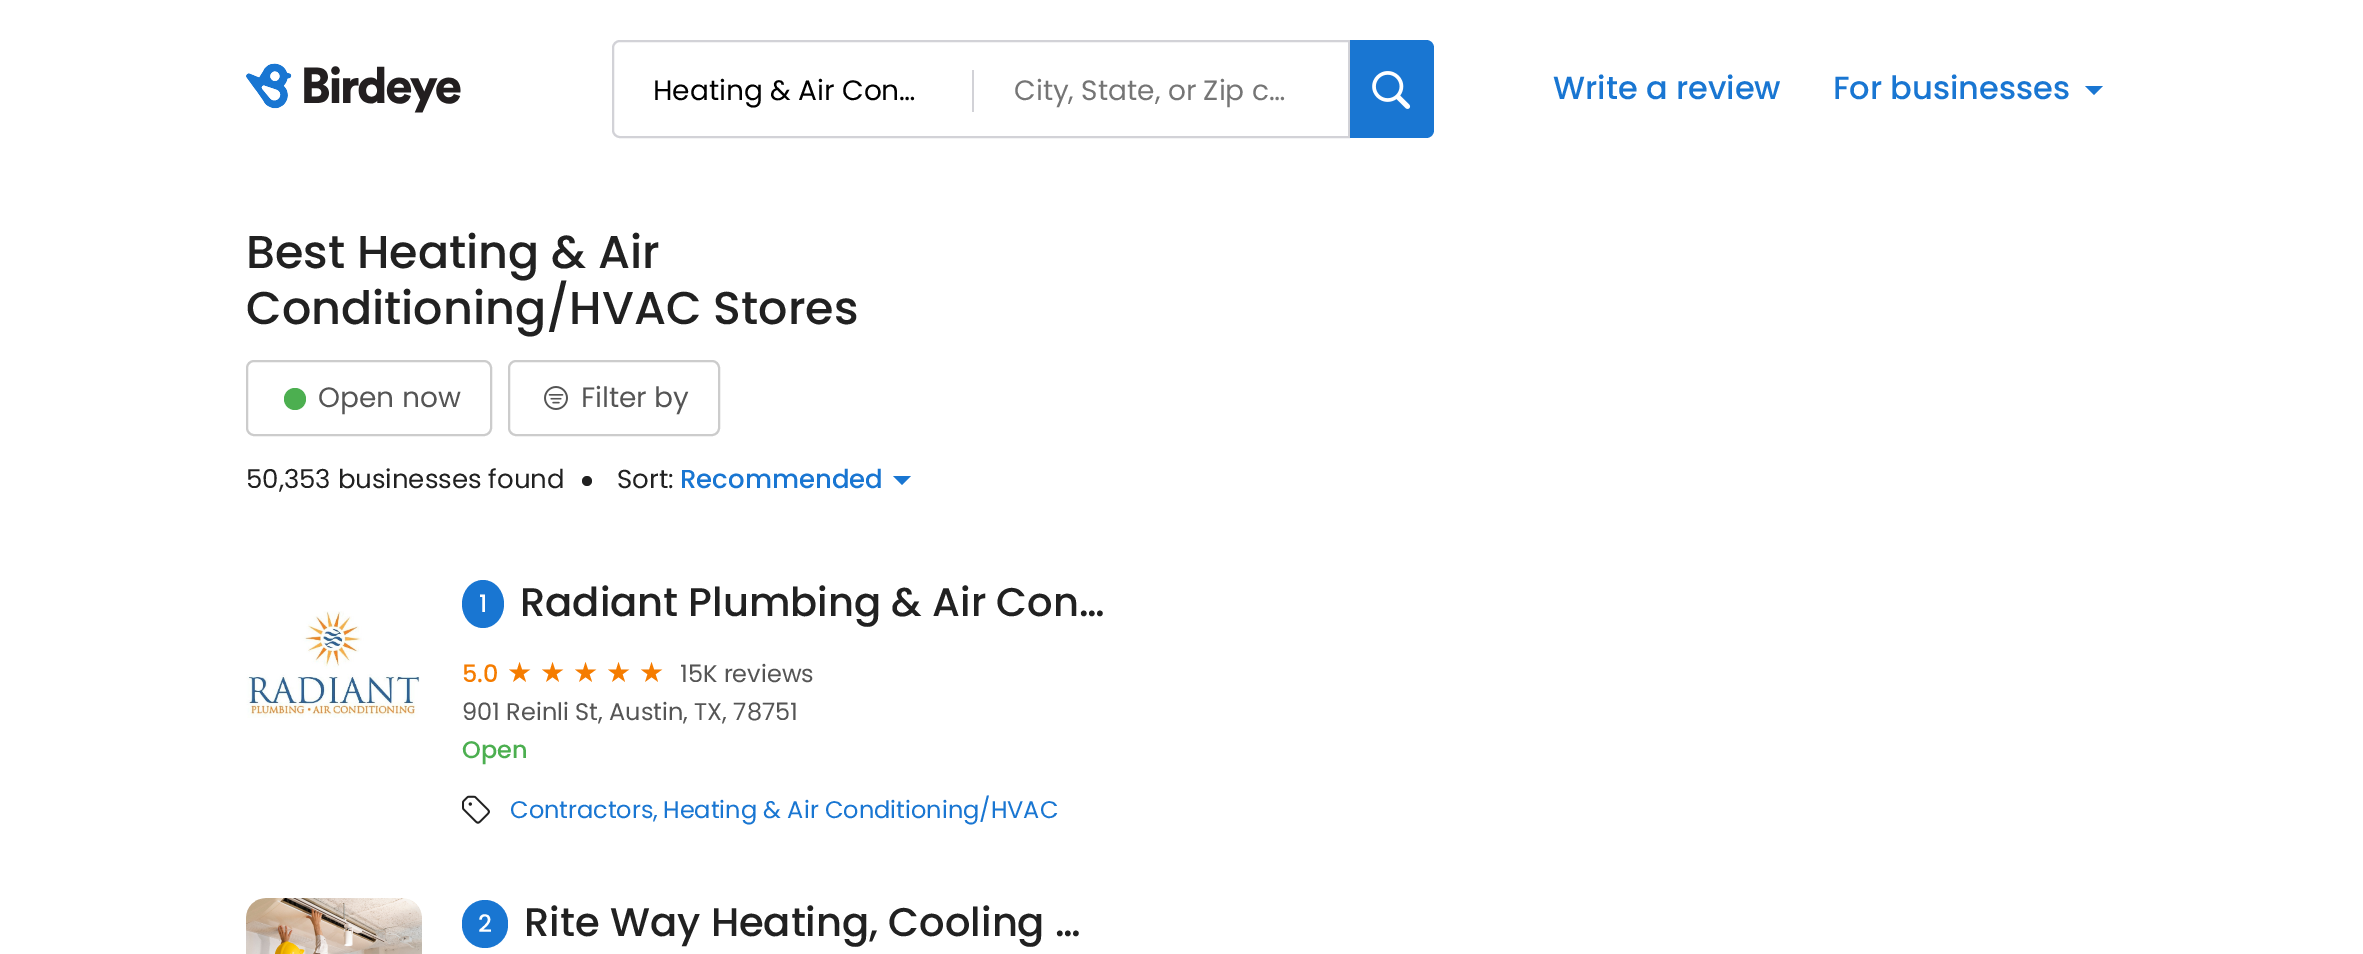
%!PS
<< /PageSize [2363 954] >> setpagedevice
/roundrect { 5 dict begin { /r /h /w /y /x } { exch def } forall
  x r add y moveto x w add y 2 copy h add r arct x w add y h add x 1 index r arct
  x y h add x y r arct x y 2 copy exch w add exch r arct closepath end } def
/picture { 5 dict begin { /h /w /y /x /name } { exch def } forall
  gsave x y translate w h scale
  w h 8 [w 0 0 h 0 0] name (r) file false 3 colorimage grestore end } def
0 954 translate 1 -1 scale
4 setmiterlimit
1 setgray
0 0 2363 954 rectfill
(img1.rgb) 246 63 215 50 picture
0.824 0.824 0.843 setrgbcolor
2 setlinewidth
newpath 620 41 moveto 1349 41 lineto 1349 137 lineto 620 137 lineto 616 137 613 134 613 130 curveto 613 48 lineto 613 44 616 41 620 41 curveto closepath stroke
972 70 2 42 rectfill
/Poppins-Regular [28 0 0 -28 0 0] selectfont
0 setgray
653 100 moveto (Heating & Air Con…) show
0.459 setgray
1014 100 moveto (City, State, or Zip c…) show
0.098 0.463 0.824 setrgbcolor
newpath 1350 40 moveto 1426 40 lineto 1430.5 40 1434 43.5 1434 48 curveto 1434 130 lineto 1434 134.5 1430.5 138 1426 138 curveto 1350 138 lineto closepath fill
(img2.rgb) 1372 71 39 38 picture
/Poppins-Medium [32 0 0 -32 0 0] selectfont
1553 99 moveto (Write a review) show
1833 99 moveto (For businesses) show
newpath 2085 86 moveto 2094 95 lineto 2103 86 lineto closepath fill
/Poppins-Medium [46 0 0 -46 0 0] selectfont
0.129 setgray
246 268 moveto (Best Heating & Air) show
246 324 moveto (Conditioning/HVAC Stores) show
0.8 setgray
247 361 244 74 7 roundrect stroke
0.298 0.686 0.314 setrgbcolor
newpath 295 399 11 0 360 arc closepath fill
/Poppins-Regular [28 0 0 -28 0 0] selectfont
0.333 setgray
318 407 moveto (Open now) show
0.8 setgray
509 361 210 74 7 roundrect stroke
(img3.rgb) 544 386 24 24 picture
0.333 setgray
581 407 moveto (Filter by) show
/Poppins-Regular [26 0 0 -26 0 0] selectfont
0.129 setgray
246 488 moveto (50,353 businesses found) show
newpath 587 481 5 0 360 arc closepath fill
617 488 moveto (Sort:) show
/Poppins-Medium [26 0 0 -26 0 0] selectfont
0.098 0.463 0.824 setrgbcolor
680 488 moveto (Recommended) show
newpath 893 476 moveto 902 485 lineto 911 476 lineto closepath fill
(img4.rgb) 246 611 174 107 picture
newpath 483 580 moveto 494.5 580 504 590.5 504 604 curveto 504 617.5 494.5 628 483 628 curveto 471.5 628 462 617.5 462 604 curveto 462 590.5 471.5 580 483 580 curveto closepath fill
/Poppins-Medium [24 0 0 -24 0 0] selectfont
1 setgray
479 612 moveto (1) show
/Poppins-Medium [40 0 0 -40 0 0] selectfont
0.129 setgray
520 616 moveto (Radiant Plumbing & Air Con…) show
/Poppins-Medium [24 0 0 -24 0 0] selectfont
0.961 0.486 0 setrgbcolor
462 682 moveto (5.0) show
/DejaVuSans-Regular [28 0 0 -28 0 0] selectfont
507 682 moveto (★) show
540 682 moveto (★) show
573 682 moveto (★) show
606 682 moveto (★) show
639 682 moveto (★) show
/Poppins-Regular [24 0 0 -24 0 0] selectfont
0.333 setgray
680 682 moveto (15K reviews) show
462 720 moveto (901 Reinli St, Austin, TX, 78751) show
/Poppins-Medium [24 0 0 -24 0 0] selectfont
0.298 0.686 0.314 setrgbcolor
462 758 moveto (Open) show
(img5.rgb) 462 795 28 29 picture
/Poppins-Regular [24 0 0 -24 0 0] selectfont
0.098 0.463 0.824 setrgbcolor
510 818 moveto (Contractors,) show
663 818 moveto (Heating & Air Conditioning/HVAC) show
(img6.rgb) 246 898 176 56 picture
462 900 46 48 23 roundrect fill
/Poppins-Medium [24 0 0 -24 0 0] selectfont
1 setgray
478 932 moveto (2) show
/Poppins-Medium [40 0 0 -40 0 0] selectfont
0.129 setgray
524 936 moveto (Rite Way Heating, Cooling …) show
showpage
